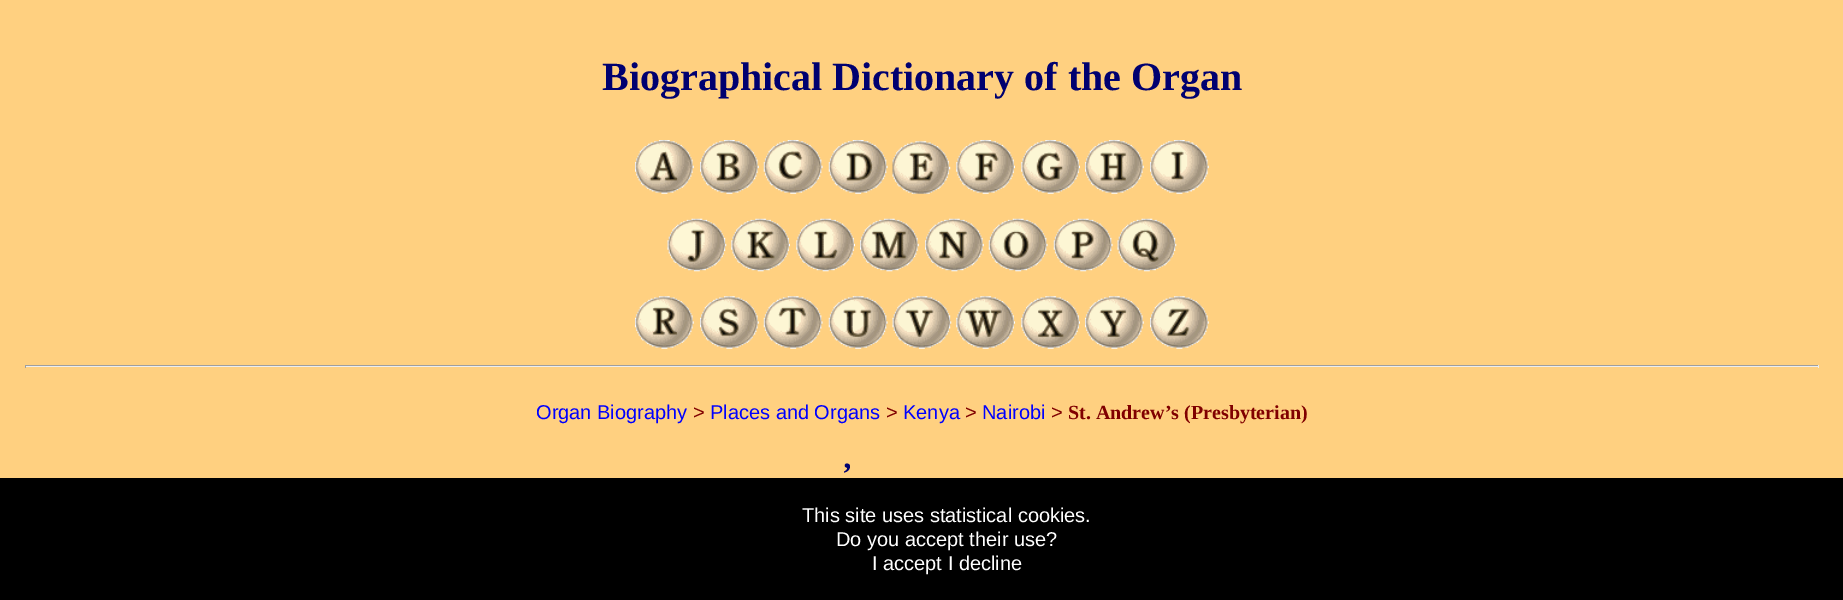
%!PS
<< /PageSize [1843 600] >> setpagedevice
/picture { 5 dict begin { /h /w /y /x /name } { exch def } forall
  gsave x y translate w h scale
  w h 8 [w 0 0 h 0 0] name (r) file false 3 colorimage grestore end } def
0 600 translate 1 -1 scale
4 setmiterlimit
1 0.816 0.502 setrgbcolor
0 0 1843 600 rectfill
/LiberationSerif-Bold [40 0 0 -40 0 0] selectfont
0 0 0.439 setrgbcolor
602 90 moveto (Biographical Dictionary of the Organ) show
(img1.rgb) 635 140 59 54 picture
(img2.rgb) 700 140 59 54 picture
(img3.rgb) 763 140 60 54 picture
(img4.rgb) 828 140 60 54 picture
(img5.rgb) 892 141 59 53 picture
(img6.rgb) 956 140 59 54 picture
(img7.rgb) 1021 140 59 54 picture
(img8.rgb) 1085 140 59 54 picture
(img9.rgb) 1150 140 59 54 picture
(img10.rgb) 667 218 60 54 picture
(img11.rgb) 731 218 59 54 picture
(img12.rgb) 796 218 59 54 picture
(img13.rgb) 860 218 59 54 picture
(img14.rgb) 925 218 59 54 picture
(img15.rgb) 988 218 60 54 picture
(img16.rgb) 1053 218 60 54 picture
(img17.rgb) 1117 218 60 54 picture
(img18.rgb) 635 296 59 53 picture
(img19.rgb) 700 296 59 53 picture
(img20.rgb) 763 296 60 53 picture
(img21.rgb) 828 296 60 53 picture
(img22.rgb) 892 296 60 53 picture
(img23.rgb) 956 296 59 53 picture
(img24.rgb) 1021 296 59 53 picture
(img25.rgb) 1085 296 59 53 picture
(img26.rgb) 1150 296 59 53 picture
0.624 setgray
25 365 1794 1 rectfill
0.933 setgray
1818 365 1 3 rectfill
25 366 1794 1 rectfill
0.624 setgray
25 365 1 3 rectfill
/LiberationSans-Regular [20 0 0 -20 0 0] selectfont
0 0 1 setrgbcolor
536 419 moveto (Organ Biography) show
0.502 0 0 setrgbcolor
693 419 moveto (>) show
0 0 1 setrgbcolor
710 419 moveto (Places and Organs) show
0.502 0 0 setrgbcolor
886 419 moveto (>) show
0 0 1 setrgbcolor
903 419 moveto (Kenya) show
0.502 0 0 setrgbcolor
965 419 moveto (>) show
0 0 1 setrgbcolor
982 419 moveto (Nairobi) show
0.502 0 0 setrgbcolor
1051 419 moveto (>) show
/LiberationSerif-Bold [20 0 0 -20 0 0] selectfont
1068 419 moveto (St. Andrew’s \(Presbyterian\)) show
/LiberationSerif-Bold [31 0 0 -31 0 0] selectfont
0 0 0.439 setrgbcolor
842 484 moveto (’) show
0 setgray
0 478 1843 122 rectfill
/LiberationSans-Regular [20 0 0 -20 0 0] selectfont
1 setgray
802 522 moveto (This site uses statistical cookies.) show
836 546 moveto (Do you accept their use?) show
872 570 moveto (I accept I decline) show
showpage
